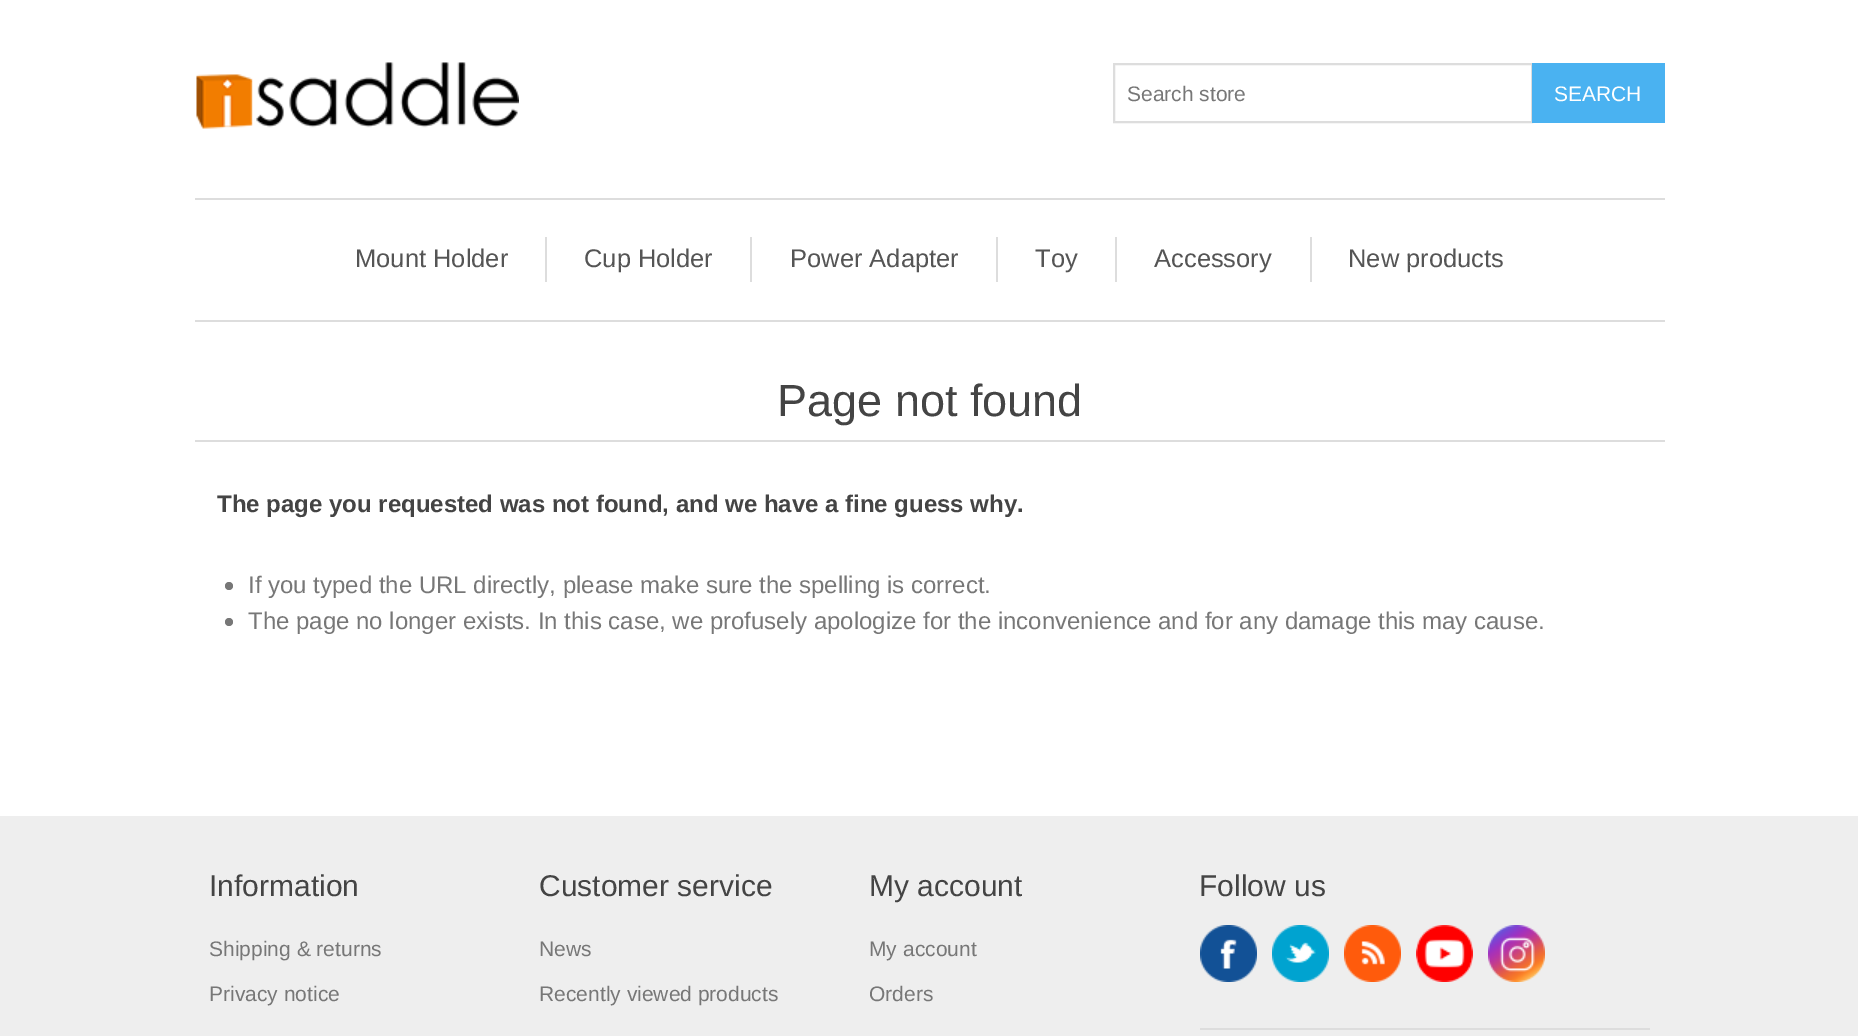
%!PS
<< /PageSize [1858 1036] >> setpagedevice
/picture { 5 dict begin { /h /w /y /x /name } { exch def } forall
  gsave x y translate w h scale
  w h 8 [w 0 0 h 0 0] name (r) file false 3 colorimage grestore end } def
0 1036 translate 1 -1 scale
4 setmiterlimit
1 setgray
0 0 1858 1036 rectfill
(img1.rgb) 196 62 323 67 picture
0.867 setgray
2 setlinewidth
1114 64 418 58 rectstroke
/LiberationSans-Regular [21 0 0 -21 0 0] selectfont
0.467 setgray
1127 101 moveto (Search store) show
0.29 0.698 0.945 setrgbcolor
1532 63 133 60 rectfill
1 setgray
1554 101 moveto (SEARCH) show
0.867 setgray
195 198 1470 2 rectfill
195 320 1470 2 rectfill
/LiberationSans-Regular [25.5 0 0 -25.5 0 0] selectfont
0.333 setgray
355 267 moveto (Mount Holder) show
0.867 setgray
545 237 2 45 rectfill
0.333 setgray
584 267 moveto (Cup Holder) show
0.867 setgray
750 237 2 45 rectfill
0.333 setgray
790 267 moveto (Power Adapter) show
0.867 setgray
996 237 2 45 rectfill
0.333 setgray
1035 267 moveto (Toy) show
0.867 setgray
1115 237 2 45 rectfill
0.333 setgray
1154 267 moveto (Accessory) show
0.867 setgray
1310 237 2 45 rectfill
0.333 setgray
1348 267 moveto (New products) show
0.867 setgray
195 440 1470 2 rectfill
/LiberationSans-Regular [45 0 0 -45 0 0] selectfont
0.267 setgray
777 416 moveto (Page not found) show
/LiberationSans-Bold [24 0 0 -24 0 0] selectfont
217 512 moveto (The page you requested was not found, and we have a fine guess why.) show
0.467 setgray
newpath 229 586 4 0 360 arc closepath fill
/LiberationSans-Regular [24 0 0 -24 0 0] selectfont
248 593 moveto (If you typed the URL directly, please make sure the spelling is correct.) show
newpath 229 622 4 0 360 arc closepath fill
248 629 moveto (The page no longer exists. In this case, we profusely apologize for the inconvenience and for any damage this may cause.) show
0.933 setgray
0 816 1858 220 rectfill
/LiberationSans-Regular [30 0 0 -30 0 0] selectfont
0.267 setgray
209 896 moveto (Information) show
/LiberationSans-Regular [21 0 0 -21 0 0] selectfont
0.467 setgray
209 956 moveto (Shipping & returns) show
209 1001 moveto (Privacy notice) show
/LiberationSans-Regular [30 0 0 -30 0 0] selectfont
0.267 setgray
539 896 moveto (Customer service) show
/LiberationSans-Regular [21 0 0 -21 0 0] selectfont
0.467 setgray
539 956 moveto (News) show
539 1001 moveto (Recently viewed products) show
/LiberationSans-Regular [30 0 0 -30 0 0] selectfont
0.267 setgray
869 896 moveto (My account) show
/LiberationSans-Regular [21 0 0 -21 0 0] selectfont
0.467 setgray
869 956 moveto (My account) show
869 1001 moveto (Orders) show
/LiberationSans-Regular [30 0 0 -30 0 0] selectfont
0.267 setgray
1199 896 moveto (Follow us) show
0.867 setgray
1200 1028 450 2 rectfill
(img2.rgb) 1200 925 57 57 picture
(img3.rgb) 1272 925 57 57 picture
(img4.rgb) 1344 925 57 57 picture
(img5.rgb) 1416 925 57 57 picture
(img6.rgb) 1488 925 57 57 picture
showpage
